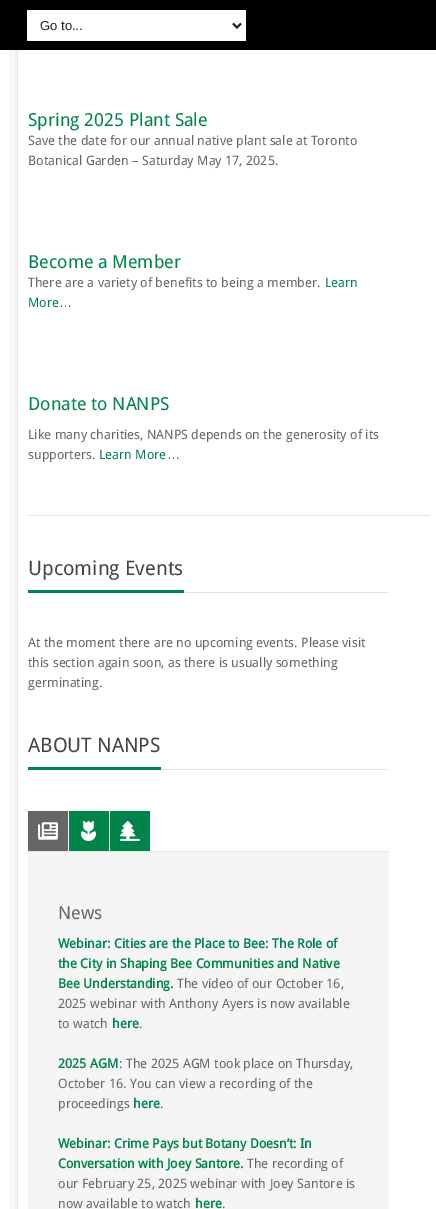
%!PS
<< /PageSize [436 1209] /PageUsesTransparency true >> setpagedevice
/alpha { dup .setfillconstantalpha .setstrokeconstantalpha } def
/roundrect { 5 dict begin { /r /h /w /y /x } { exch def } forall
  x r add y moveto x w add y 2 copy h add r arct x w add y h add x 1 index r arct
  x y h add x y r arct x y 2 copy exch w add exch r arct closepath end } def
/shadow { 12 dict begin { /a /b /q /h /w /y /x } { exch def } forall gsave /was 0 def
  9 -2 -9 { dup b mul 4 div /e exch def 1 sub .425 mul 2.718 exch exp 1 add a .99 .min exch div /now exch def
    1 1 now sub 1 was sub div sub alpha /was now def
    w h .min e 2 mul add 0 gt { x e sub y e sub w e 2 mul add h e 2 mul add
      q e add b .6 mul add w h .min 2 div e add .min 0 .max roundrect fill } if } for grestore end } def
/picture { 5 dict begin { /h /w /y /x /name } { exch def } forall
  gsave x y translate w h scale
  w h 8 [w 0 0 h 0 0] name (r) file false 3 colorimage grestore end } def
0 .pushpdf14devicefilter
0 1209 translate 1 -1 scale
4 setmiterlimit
1 setgray
0 0 436 1209 rectfill
gsave
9 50 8 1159 rectclip
0 setgray
17 -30 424 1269 0 10 0.09 shadow
grestore
0 setgray
0 0 436 50 rectfill
1 setgray
27 10 219 31 rectfill
0.133 setgray
2 setlinewidth
newpath 233 23.5 moveto 237 27.5 lineto 241 23.5 lineto stroke
/LiberationSans-Regular [13 0 0 -13 0 0] selectfont
40 30 moveto (Go to...) show
0.898 setgray
17 50 1 1159 rectfill
/DroidSans-Regular [18 0 0 -18 0 0] selectfont
0 0.518 0.29 setrgbcolor
28 126 moveto (Spring 2025 Plant Sale) show
/DroidSans-Regular [13 0 0 -13 0 0] selectfont
0.4 setgray
28 145 moveto (Save the date for our annual native plant sale at Toronto) show
28 165 moveto (Botanical Garden – Saturday May 17, 2025.) show
/DroidSans-Regular [18 0 0 -18 0 0] selectfont
0 0.518 0.29 setrgbcolor
28 268 moveto (Become a Member) show
/DroidSans-Regular [13 0 0 -13 0 0] selectfont
0.4 setgray
28 287 moveto (There are a variety of benefits to being a member.) show
0 0.518 0.29 setrgbcolor
325 287 moveto (Learn) show
28 307 moveto (More) show
/LiberationSans-Regular [13 0 0 -13 0 0] selectfont
59 307 moveto (…) show
/DroidSans-Regular [18 0 0 -18 0 0] selectfont
28 410 moveto (Donate to NANPS) show
/DroidSans-Regular [13 0 0 -13 0 0] selectfont
0.4 setgray
28 439 moveto (Like many charities, NANPS depends on the generosity of its) show
28 459 moveto (supporters.) show
0 0.518 0.29 setrgbcolor
99 459 moveto (Learn More) show
/LiberationSans-Regular [13 0 0 -13 0 0] selectfont
167 459 moveto (…) show
0.898 setgray
28 515 402 1 rectfill
184 592 205 1 rectfill
0 0.518 0.29 setrgbcolor
28 590 156 3 rectfill
/DroidSans-Regular [20 0 0 -20 0 0] selectfont
0.267 setgray
28 575 moveto (Upcoming Events) show
/DroidSans-Regular [13 0 0 -13 0 0] selectfont
0.4 setgray
28 647 moveto (At the moment there are no upcoming events. Please visit) show
28 667 moveto (this section again soon, as there is usually something) show
28 687 moveto (germinating.) show
0.898 setgray
161 769 228 1 rectfill
0 0.518 0.29 setrgbcolor
28 767 133 3 rectfill
/DroidSans-Regular [20 0 0 -20 0 0] selectfont
0.267 setgray
28 752 moveto (ABOUT NANPS) show
0.4 setgray
28 811 40 40 rectfill
(img1.rgb) 38 822 20 18 picture
0 0.518 0.29 setrgbcolor
69 811 40 40 rectfill
(img2.rgb) 81 821 15 20 picture
110 811 40 40 rectfill
(img3.rgb) 120 821 20 20 picture
0.961 setgray
28 852 361 357 rectfill
0.898 setgray
28 851 361 1 rectfill
/DroidSans-Regular [18 0 0 -18 0 0] selectfont
0.4 setgray
58 919 moveto (News) show
/DroidSans-Bold [13 0 0 -13 0 0] selectfont
0 0.518 0.29 setrgbcolor
58 948 moveto (Webinar: Cities are the Place to Bee: The Role of) show
58 968 moveto (the City in Shaping Bee Communities and Native) show
58 988 moveto (Bee Understanding.) show
/DroidSans-Regular [13 0 0 -13 0 0] selectfont
0.4 setgray
177 988 moveto (The video of our October 16,) show
58 1008 moveto (2025 webinar with Anthony Ayers is now available) show
58 1028 moveto (to watch) show
/DroidSans-Bold [13 0 0 -13 0 0] selectfont
0 0.518 0.29 setrgbcolor
112 1028 moveto (here) show
/DroidSans-Regular [13 0 0 -13 0 0] selectfont
0.4 setgray
139 1028 moveto (.) show
/DroidSans-Bold [13 0 0 -13 0 0] selectfont
0 0.518 0.29 setrgbcolor
58 1068 moveto (2025 AGM) show
/DroidSans-Regular [13 0 0 -13 0 0] selectfont
0.4 setgray
119 1068 moveto (: The 2025 AGM took place on Thursday,) show
58 1088 moveto (October 16. You can view a recording of the) show
58 1108 moveto (proceedings) show
/DroidSans-Bold [13 0 0 -13 0 0] selectfont
0 0.518 0.29 setrgbcolor
133 1108 moveto (here) show
/DroidSans-Regular [13 0 0 -13 0 0] selectfont
0.4 setgray
160 1108 moveto (.) show
/DroidSans-Bold [13 0 0 -13 0 0] selectfont
0 0.518 0.29 setrgbcolor
58 1148 moveto (Webinar: Crime Pays but Botany Doesn’t: In) show
58 1168 moveto (Conversation with Joey Santore.) show
/DroidSans-Regular [13 0 0 -13 0 0] selectfont
0.4 setgray
247 1168 moveto (The recording of) show
58 1188 moveto (our February 25, 2025 webinar with Joey Santore is) show
58 1208 moveto (now available to watch) show
/DroidSans-Bold [13 0 0 -13 0 0] selectfont
0 0.518 0.29 setrgbcolor
195 1208 moveto (here) show
/DroidSans-Regular [13 0 0 -13 0 0] selectfont
0.4 setgray
222 1208 moveto (.) show
.poppdf14devicefilter showpage
